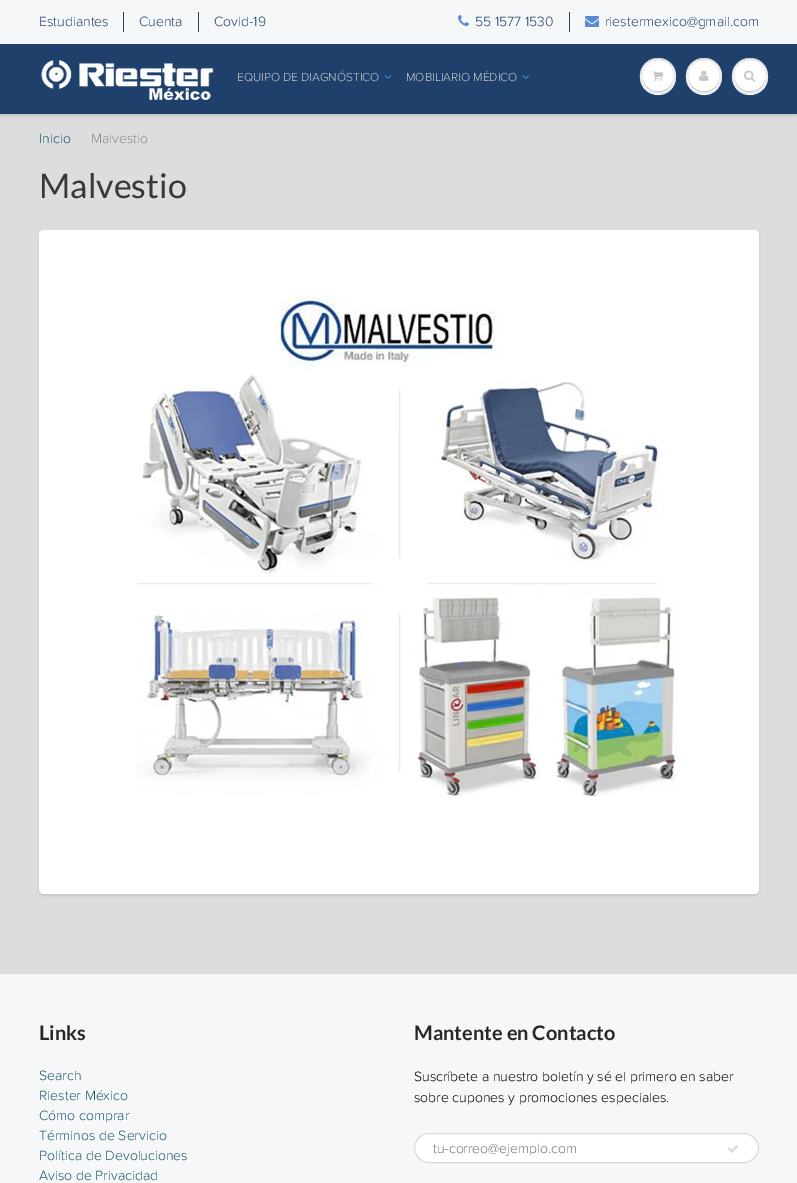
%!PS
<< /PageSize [797 1183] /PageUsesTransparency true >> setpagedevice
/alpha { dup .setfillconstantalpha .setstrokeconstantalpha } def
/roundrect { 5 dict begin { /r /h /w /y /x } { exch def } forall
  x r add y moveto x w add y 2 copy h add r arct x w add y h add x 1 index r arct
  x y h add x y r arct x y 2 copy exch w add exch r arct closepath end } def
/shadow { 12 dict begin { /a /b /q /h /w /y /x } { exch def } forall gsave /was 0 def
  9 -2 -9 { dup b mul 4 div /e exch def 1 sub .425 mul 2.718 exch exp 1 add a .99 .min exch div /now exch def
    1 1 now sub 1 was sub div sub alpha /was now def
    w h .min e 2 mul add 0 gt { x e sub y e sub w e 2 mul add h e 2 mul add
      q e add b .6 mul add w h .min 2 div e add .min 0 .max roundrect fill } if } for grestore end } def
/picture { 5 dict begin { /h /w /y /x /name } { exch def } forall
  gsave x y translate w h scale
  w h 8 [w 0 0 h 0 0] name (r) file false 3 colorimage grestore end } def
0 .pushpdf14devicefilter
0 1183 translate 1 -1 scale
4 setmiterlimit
0.965 0.969 0.976 setrgbcolor
0 0 797 1183 rectfill
/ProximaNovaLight-Light [14 0 0 -14 0 0] selectfont
0.125 0.251 0.424 setrgbcolor
39 26 moveto (Estudiantes) show
123 12 1 20 rectfill
139 26 moveto (Cuenta) show
198 12 1 20 rectfill
214 26 moveto (Covid-19) show
(img1.rgb) 458 15 11 11 picture
475 26 moveto (55 1577 1530) show
569 12 1 20 rectfill
(img2.rgb) 585 16 14 11 picture
605 26 moveto (riestermexico@gmail.com) show
0.863 0.867 0.875 setrgbcolor
0 114 797 860 rectfill
0.043 0.098 0.11 setrgbcolor
0 46 797 70 0 1 0.12 shadow
0.125 0.251 0.424 setrgbcolor
0 44 797 70 rectfill
(img3.rgb) 41 59 173 41 picture
/ProximaNovaLight-Light [12 0 0 -12 0 0] selectfont
0.776 setgray
237 81 moveto (EQUIPO DE DIAGNÓSTICO) show
(img4.rgb) 384 75 8 4 picture
406 81 moveto (MOBILIARIO MÉDICO) show
(img4.rgb) 522 75 8 4 picture
1 setgray
newpath 640 76.5 moveto 639.5 94.5 663 102 673 87 curveto 675 84 676 80 676 76.5 curveto 675.5 86 668 94 658 94 curveto 648 94 640.5 86 640 76.5 curveto closepath fill
0.929 0.937 0.937 setrgbcolor
newpath 658 76 18 0 360 arc closepath fill
0.788 0.796 0.796 setrgbcolor
newpath 658 59 moveto 670 59 676 67.5 676 76.5 curveto 676 73 675 69 673 66 curveto 663 51 639.5 58.5 640 76.5 curveto 640 67.5 646 59 658 59 curveto closepath fill
newpath 673 76.5 moveto 672.5 95.5 643.5 95.5 643 76.5 curveto 642.5 91.5 662 98 670.5 85.5 curveto 672 83 673 79.5 673 76.5 curveto closepath fill
1 setgray
newpath 658 76 15 0 360 arc closepath fill
newpath 658 62 moveto 668 62 673 69 673 76.5 curveto 673 73.5 672 70 670.5 67.5 curveto 662 55 642.5 61.5 643 76.5 curveto 643 69 648 62 658 62 curveto closepath fill
(img5.rgb) 652 71 12 10 picture
newpath 686 76.5 moveto 685.5 94.5 709 102 719 87 curveto 721 84 722 80 722 76.5 curveto 721.5 86 714 94 704 94 curveto 694 94 686.5 86 686 76.5 curveto closepath fill
0.929 0.937 0.937 setrgbcolor
newpath 704 76 18 0 360 arc closepath fill
0.788 0.796 0.796 setrgbcolor
newpath 704 59 moveto 716 59 722 67.5 722 76.5 curveto 722 73 721 69 719 66 curveto 709 51 685.5 58.5 686 76.5 curveto 686 67.5 692 59 704 59 curveto closepath fill
newpath 719 76.5 moveto 718.5 95.5 689.5 95.5 689 76.5 curveto 689 79.5 690 83 691.5 85.5 curveto 700 98 719.5 91.5 719 76.5 curveto closepath fill
1 setgray
newpath 704 76 15 0 360 arc closepath fill
newpath 704 62 moveto 714 62 719 69 719 76.5 curveto 719 73.5 718 70 716.5 67.5 curveto 708 55 688.5 61.5 689 76.5 curveto 689 69 694 62 704 62 curveto closepath fill
(img6.rgb) 699 70 10 11 picture
newpath 732 76.5 moveto 732 80 733 84 735 87 curveto 745 102 768.5 94.5 768 76.5 curveto 767.5 86 760 94 750 94 curveto 740 94 732.5 86 732 76.5 curveto closepath fill
0.929 0.937 0.937 setrgbcolor
newpath 750 76 18 0 360 arc closepath fill
0.788 0.796 0.796 setrgbcolor
newpath 750 59 moveto 762 59 768 67.5 768 76.5 curveto 768 73 767 69 765 66 curveto 755 51 731.5 58.5 732 76.5 curveto 732 67.5 738 59 750 59 curveto closepath fill
newpath 765 76.5 moveto 764.5 95.5 735.5 95.5 735 76.5 curveto 734.5 91.5 754 98 762.5 85.5 curveto 764 83 765 79.5 765 76.5 curveto closepath fill
1 setgray
newpath 750 76 15 0 360 arc closepath fill
newpath 750 62 moveto 760 62 765 69 765 76.5 curveto 765 73.5 764 70 762.5 67.5 curveto 754 55 734.5 61.5 735 76.5 curveto 735 69 740 62 750 62 curveto closepath fill
(img7.rgb) 744 70 11 12 picture
/ProximaNovaLight-Light [14 0 0 -14 0 0] selectfont
0.114 0.322 0.4 setrgbcolor
39 143 moveto (Inicio) show
0.537 setgray
91 143 moveto (Malvestio) show
/Lato-Regular [34 0 0 -34 0 0] selectfont
0.22 0.22 0.216 setrgbcolor
39 198 moveto (Malvestio) show
0.043 0.098 0.11 setrgbcolor
39 232 720 664 5 1 0.1 shadow
1 setgray
39 230 720 664 5 roundrect fill
(img8.rgb) 136 296 542 501 picture
0.949 setgray
0 974 797 1 rectfill
/Lato-Bold [20 0 0 -20 0 0] selectfont
0.157 0.153 0.153 setrgbcolor
39 1040 moveto (Links) show
/ProximaNovaLight-Light [14 0 0 -14 0 0] selectfont
0.11 0.341 0.427 setrgbcolor
39 1080 moveto (Search) show
39 1100 moveto (Riester México) show
39 1120 moveto (Cómo comprar) show
39 1140 moveto (Términos de Servicio) show
39 1160 moveto (Política de Devoluciones) show
39 1180 moveto (Aviso de Privacidad) show
/Lato-Bold [20 0 0 -20 0 0] selectfont
0.157 0.153 0.153 setrgbcolor
414 1040 moveto (Mantente en Contacto) show
/ProximaNovaLight-Light [14 0 0 -14 0 0] selectfont
0 setgray
414 1081 moveto (Suscríbete a nuestro boletín y sé el primero en saber) show
414 1102 moveto (sobre cupones y promociones especiales.) show
1 setgray
414.5 1133.5 344 29 14.5 roundrect gsave fill grestore
0.843 0.859 0.859 setrgbcolor
stroke
0.459 setgray
433 1153 moveto (tu-correo@ejemplo.com) show
(img9.rgb) 728 1145 10 8 picture
.poppdf14devicefilter showpage
